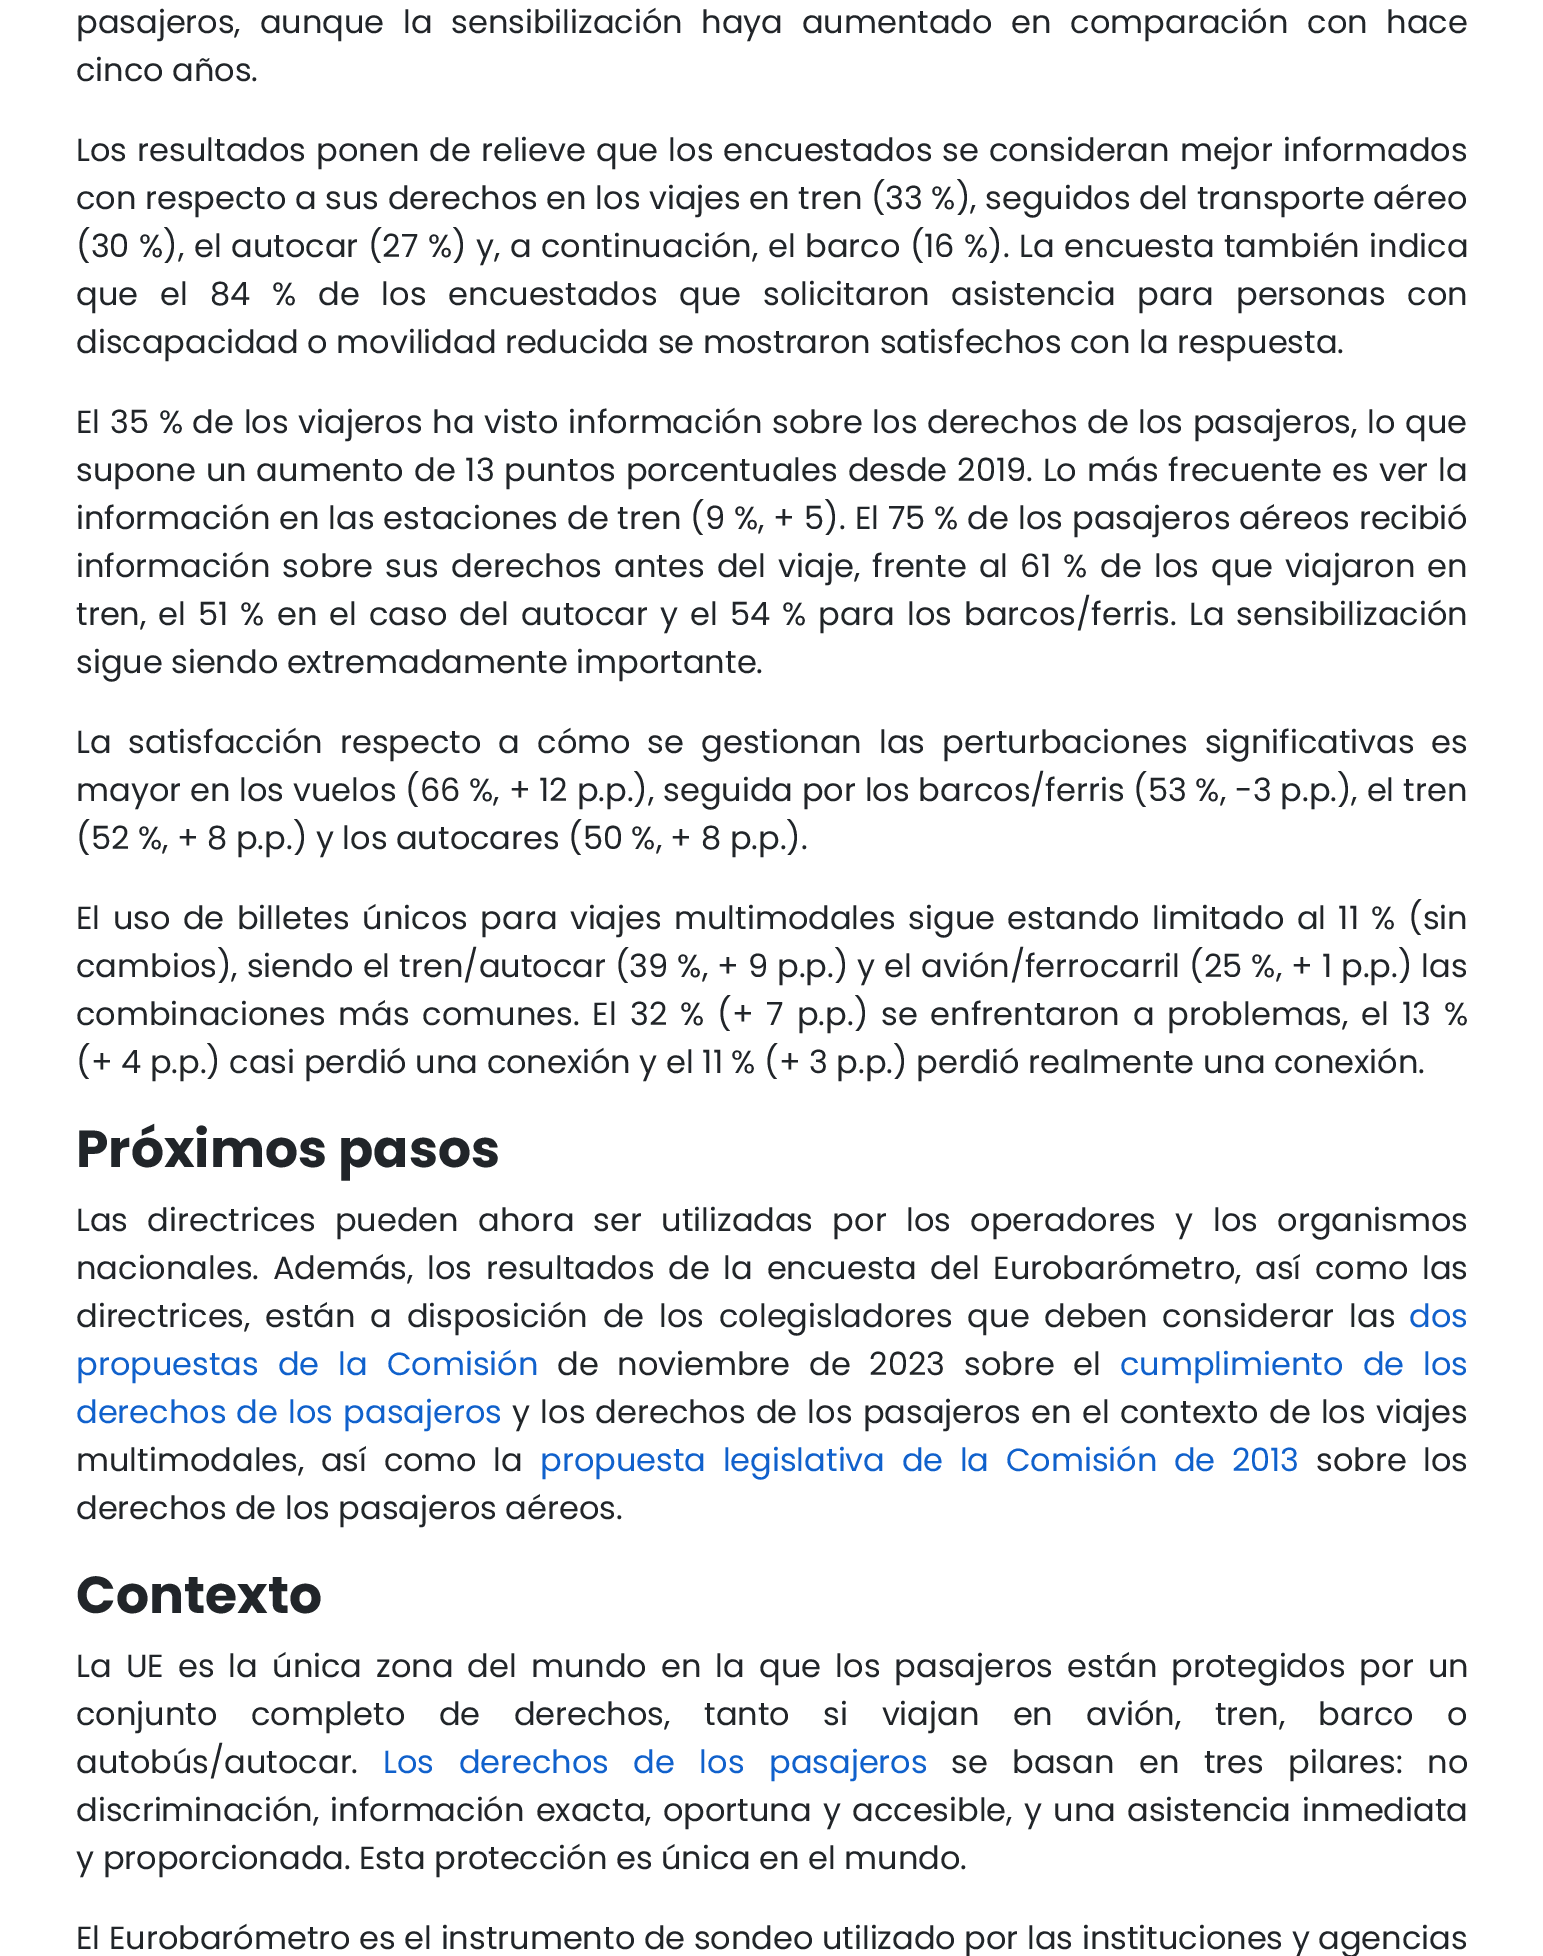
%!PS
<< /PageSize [1543 1956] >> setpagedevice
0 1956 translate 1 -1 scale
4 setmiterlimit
1 setgray
0 0 1543 1956 rectfill
/Poppins-Regular [32 0 0 -32 0 0] selectfont
0.129 0.145 0.161 setrgbcolor
76 33 moveto 10.25 0 32 (pasajeros, aunque la sensibilización haya aumentado en comparación con hace) widthshow
76 81 moveto (cinco años.) show
76 161 moveto 1.6 0 32 (Los resultados ponen de relieve que los encuestados se consideran mejor informados) widthshow
76 209 moveto (con respecto a sus derechos en los viajes en tren \(33 %\), seguidos del transporte aéreo) show
76 257 moveto 1 0 32 (\(30 %\), el autocar \(27 %\) y, a continuación, el barco \(16 %\). La encuesta también indica) widthshow
76 305 moveto 13.4 0 32 (que el 84 % de los encuestados que solicitaron asistencia para personas con) widthshow
76 353 moveto (discapacidad o movilidad reducida se mostraron satisfechos con la respuesta.) show
76 433 moveto 1.1 0 32 (El 35 % de los viajeros ha visto información sobre los derechos de los pasajeros, lo que) widthshow
76 481 moveto 1.4 0 32 (supone un aumento de 13 puntos porcentuales desde 2019. Lo más frecuente es ver la) widthshow
76 529 moveto 0.4 0 32 (información en las estaciones de tren \(9 %, + 5\). El 75 % de los pasajeros aéreos recibió) widthshow
76 577 moveto 3.75 0 32 (información sobre sus derechos antes del viaje, frente al 61 % de los que viajaron en) widthshow
76 625 moveto 3.5 0 32 (tren, el 51 % en el caso del autocar y el 54 % para los barcos/ferris. La sensibilización) widthshow
76 673 moveto (sigue siendo extremadamente importante.) show
76 753 moveto 8.5 0 32 (La satisfacción respecto a cómo se gestionan las perturbaciones significativas es) widthshow
76 801 moveto 0.3 0 32 (mayor en los vuelos \(66 %, + 12 p.p.\), seguida por los barcos/ferris \(53 %, -3 p.p.\), el tren) widthshow
76 849 moveto (\(52 %, + 8 p.p.\) y los autocares \(50 %, + 8 p.p.\).) show
76 929 moveto 3.9 0 32 (El uso de billetes únicos para viajes multimodales sigue estando limitado al 11 % \(sin) widthshow
76 977 moveto 0.5 0 32 (cambios\), siendo el tren/autocar \(39 %, + 9 p.p.\) y el avión/ferrocarril \(25 %, + 1 p.p.\) las) widthshow
76 1025 moveto 4.4 0 32 (combinaciones más comunes. El 32 % \(+ 7 p.p.\) se enfrentaron a problemas, el 13 %) widthshow
76 1073 moveto (\(+ 4 p.p.\) casi perdió una conexión y el 11 % \(+ 3 p.p.\) perdió realmente una conexión.) show
/Poppins-Bold [52 0 0 -52 0 0] selectfont
76 1167 moveto (Próximos pasos) show
/Poppins-Regular [32 0 0 -32 0 0] selectfont
76 1231 moveto 10.75 0 32 (Las directrices pueden ahora ser utilizadas por los operadores y los organismos) widthshow
76 1279 moveto 5.1 0 32 (nacionales. Además, los resultados de la encuesta del Eurobarómetro, así como las) widthshow
76 1327 moveto 6.25 0 32 (directrices, están a disposición de los colegisladores que deben considerar las) widthshow
0.063 0.38 0.8 setrgbcolor
1409 1327 moveto (dos) show
76 1375 moveto 10.5 0 32 (propuestas de la Comisión) widthshow
0.129 0.145 0.161 setrgbcolor
557 1375 moveto 10.25 0 32 (de noviembre de 2023 sobre el) widthshow
0.063 0.38 0.8 setrgbcolor
1120 1375 moveto 10.5 0 32 (cumplimiento de los) widthshow
76 1423 moveto 1.6 0 32 (derechos de los pasajeros) widthshow
0.129 0.145 0.161 setrgbcolor
512 1423 moveto 1.6 0 32 (y los derechos de los pasajeros en el contexto de los viajes) widthshow
76 1471 moveto 8 0 32 (multimodales, así como la) widthshow
0.063 0.38 0.8 setrgbcolor
540 1471 moveto 8 0 32 (propuesta legislativa de la Comisión de 2013) widthshow
0.129 0.145 0.161 setrgbcolor
1316 1471 moveto 8 0 32 (sobre los) widthshow
76 1519 moveto (derechos de los pasajeros aéreos.) show
/Poppins-Bold [52 0 0 -52 0 0] selectfont
76 1613 moveto (Contexto) show
/Poppins-Regular [32 0 0 -32 0 0] selectfont
76 1677 moveto 5.6 0 32 (La UE es la única zona del mundo en la que los pasajeros están protegidos por un) widthshow
76 1725 moveto 25 0 32 (conjunto completo de derechos, tanto si viajan en avión, tren, barco o) widthshow
76 1773 moveto (autobús/autocar.) show
0.063 0.38 0.8 setrgbcolor
383 1773 moveto 16 0 32 (Los derechos de los pasajeros) widthshow
0.129 0.145 0.161 setrgbcolor
951 1773 moveto 16 0 32 (se basan en tres pilares: no) widthshow
76 1821 moveto 2.75 0 32 (discriminación, información exacta, oportuna y accesible, y una asistencia inmediata) widthshow
76 1869 moveto (y proporcionada. Esta protección es única en el mundo.) show
76 1949 moveto (El Eurobarómetro es el instrumento de sondeo utilizado por las instituciones y agencias) show
showpage
